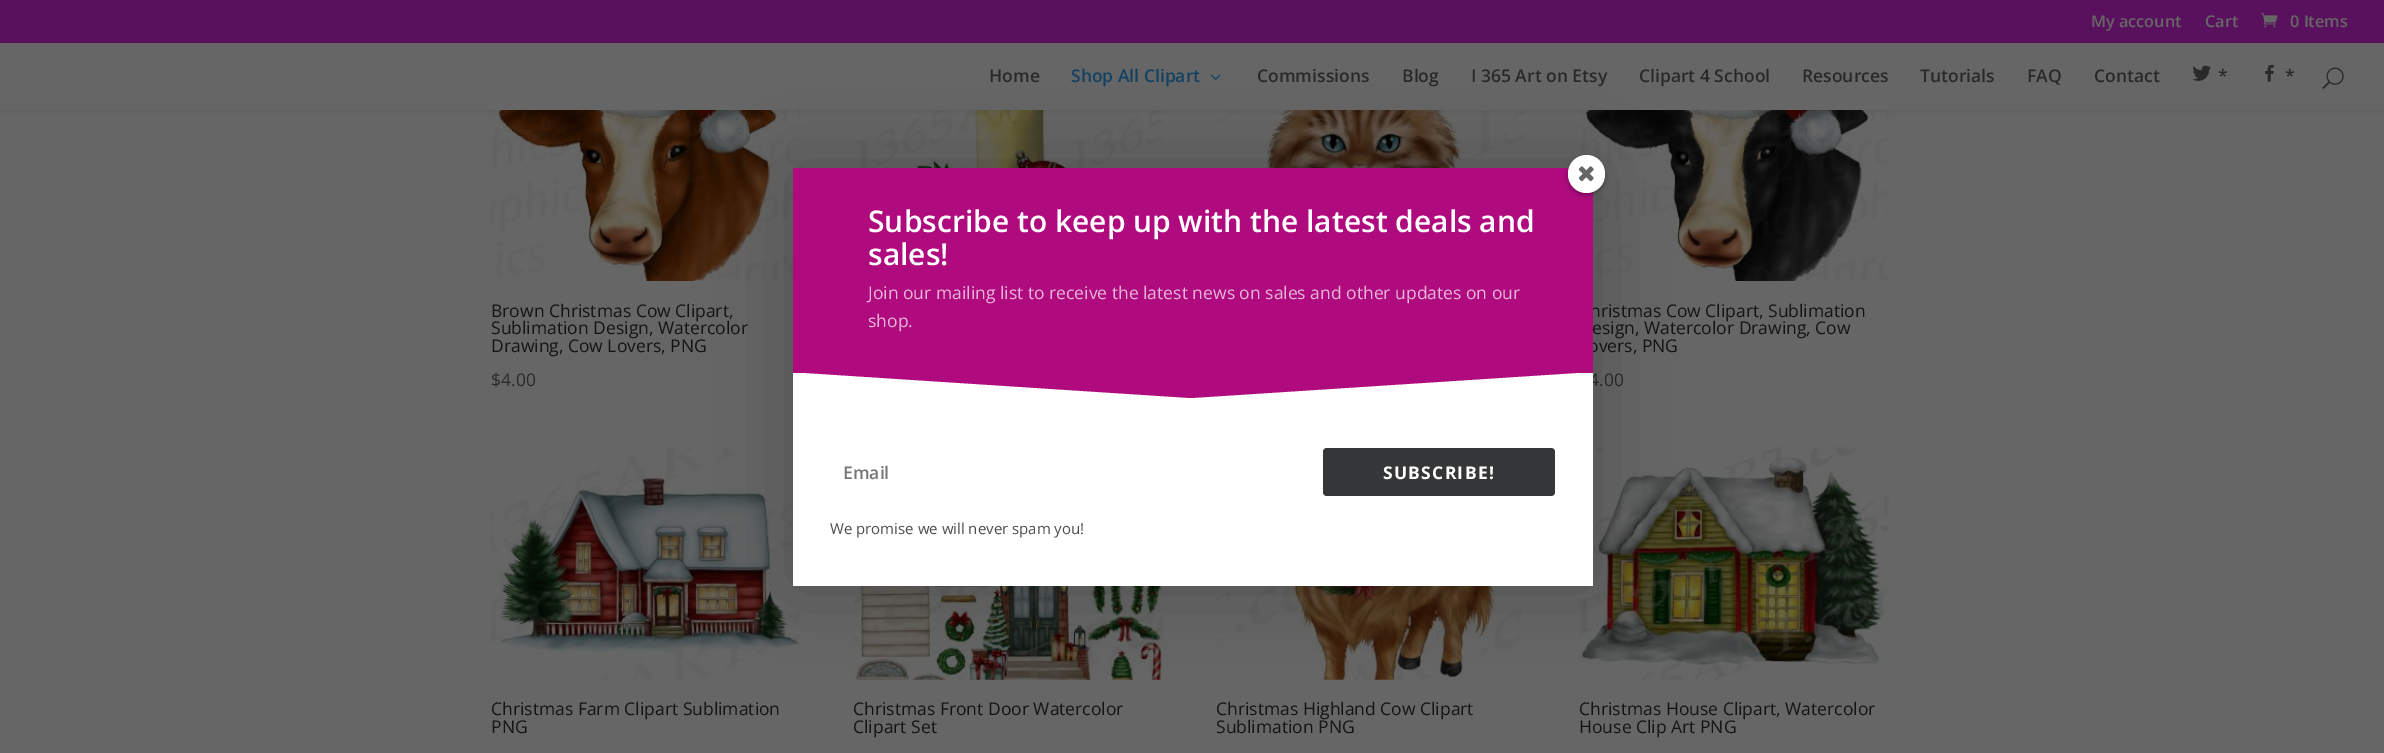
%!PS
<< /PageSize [2384 753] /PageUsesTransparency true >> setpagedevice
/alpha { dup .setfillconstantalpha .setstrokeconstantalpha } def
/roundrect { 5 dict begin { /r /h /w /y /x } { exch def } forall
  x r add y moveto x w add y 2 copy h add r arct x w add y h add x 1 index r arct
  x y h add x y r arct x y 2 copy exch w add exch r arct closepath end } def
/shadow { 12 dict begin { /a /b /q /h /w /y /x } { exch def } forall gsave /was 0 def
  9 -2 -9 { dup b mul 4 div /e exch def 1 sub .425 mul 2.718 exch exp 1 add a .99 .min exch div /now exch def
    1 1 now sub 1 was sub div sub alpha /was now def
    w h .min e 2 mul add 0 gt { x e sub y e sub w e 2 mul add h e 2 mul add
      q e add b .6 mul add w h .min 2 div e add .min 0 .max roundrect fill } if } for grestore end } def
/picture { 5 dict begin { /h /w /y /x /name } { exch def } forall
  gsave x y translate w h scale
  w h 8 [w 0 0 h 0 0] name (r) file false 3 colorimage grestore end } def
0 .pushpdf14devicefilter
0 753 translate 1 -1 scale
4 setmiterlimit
0.4 setgray
0 0 2384 753 rectfill
(img6.rgb) 854 110 309 58 picture
(img7.rgb) 1216 110 310 58 picture
(img8.rgb) 491 110 309 171 picture
(img9.rgb) 1579 110 310 171 picture
0 setgray
0 43 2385 67 0 4.5 0.1 shadow
0.349 0.063 0.365 setrgbcolor
0 0 2384 43 rectfill
/OpenSans-SemiBold [16.25 0 0 -16.25 0 0] selectfont
0.4 setgray
2091 27 moveto (My account) show
2205 27 moveto (Cart) show
(img1.rgb) 2261 13 17 15 picture
2290 27 moveto (0 Items) show
0 43 2384 67 rectfill
/OpenSans-SemiBold [17.5 0 0 -17.5 0 0] selectfont
0.161 setgray
989 82 moveto (Home) show
0.071 0.255 0.38 setrgbcolor
1071 82 moveto (Shop All Clipart) show
(img2.rgb) 1211 74 10 6 picture
0.161 setgray
1257 82 moveto (Commissions) show
1402 82 moveto (Blog) show
1471 82 moveto (I 365 Art on Etsy) show
1639 82 moveto (Clipart 4 School) show
1802 82 moveto (Resources) show
1920 82 moveto (Tutorials) show
2027 82 moveto (FAQ) show
2094 82 moveto (Contact) show
(img3.rgb) 2192 65 19 16 picture
2218 82 moveto (*) show
(img4.rgb) 2265 64 9 18 picture
2285 82 moveto (*) show
(img5.rgb) 2322 67 22 22 picture
/OpenSans-Regular [17.5 0 0 -17.5 0 0] selectfont
0.078 setgray
491 317 moveto (Brown Christmas Cow Clipart,) show
491 334 moveto (Sublimation Design, Watercolor) show
491 352 moveto (Drawing, Cow Lovers, PNG) show
0.161 setgray
491 386 moveto ($4.00) show
0.078 setgray
1590 317 moveto (hristmas Cow Clipart, Sublimation) show
1592 334 moveto (esign, Watercolor Drawing, Cow) show
1588 352 moveto (overs, PNG) show
0.161 setgray
1589 386 moveto (4.00) show
(img10.rgb) 491 447 309 233 picture
0.078 setgray
491 715 moveto (Christmas Farm Clipart Sublimation) show
491 733 moveto (PNG) show
(img11.rgb) 853 586 310 94 picture
853 715 moveto (Christmas Front Door Watercolor) show
853 733 moveto (Clipart Set) show
(img12.rgb) 1216 586 310 94 picture
1216 715 moveto (Christmas Highland Cow Clipart) show
1216 733 moveto (Sublimation PNG) show
(img13.rgb) 1578 447 311 233 picture
1579 715 moveto (Christmas House Clipart, Watercolor) show
1579 733 moveto (House Clip Art PNG) show
0 setgray
793 168 800 418 0 37.5 0.2 shadow
0.686 0.039 0.494 setrgbcolor
793 168 800 205 rectfill
0 setgray
1568 158 37 37 18.5 2.5 0.34 shadow
1 setgray
1568 155 37 38 18.5 roundrect fill
(img14.rgb) 1578 166 16 16 picture
/OpenSans-SemiBold [30 0 0 -30 0 0] selectfont
868 232 moveto (Subscribe to keep up with the latest deals and) show
868 265 moveto (sales!) show
/OpenSans-Regular [17.5 0 0 -17.5 0 0] selectfont
0.906 0.714 0.847 setrgbcolor
868 299 moveto (Join our mailing list to receive the latest news on sales and other updates on our) show
868 327 moveto (shop.) show
1 setgray
793 373 800 213 rectfill
gsave
791 373 800 25 rectclip
0.686 0.039 0.494 setrgbcolor
newpath 791 372 moveto 1191 398 lineto 1591 372 lineto closepath fill
grestore
/OpenSans-SemiBold [17.5 0 0 -17.5 0 0] selectfont
0.459 setgray
843 479 moveto (Email) show
0.208 0.212 0.216 setrgbcolor
1323 448 232 48 4 roundrect fill
/OpenSans-Bold [17.5 0 0 -17.5 0 0] selectfont
1 setgray
1383 479 moveto 1.25 0 (SUBSCRIBE!) ashow
/OpenSans-Regular [15 0 0 -15 0 0] selectfont
0.302 setgray
830 534 moveto (We promise we will never spam you!) show
.poppdf14devicefilter showpage
